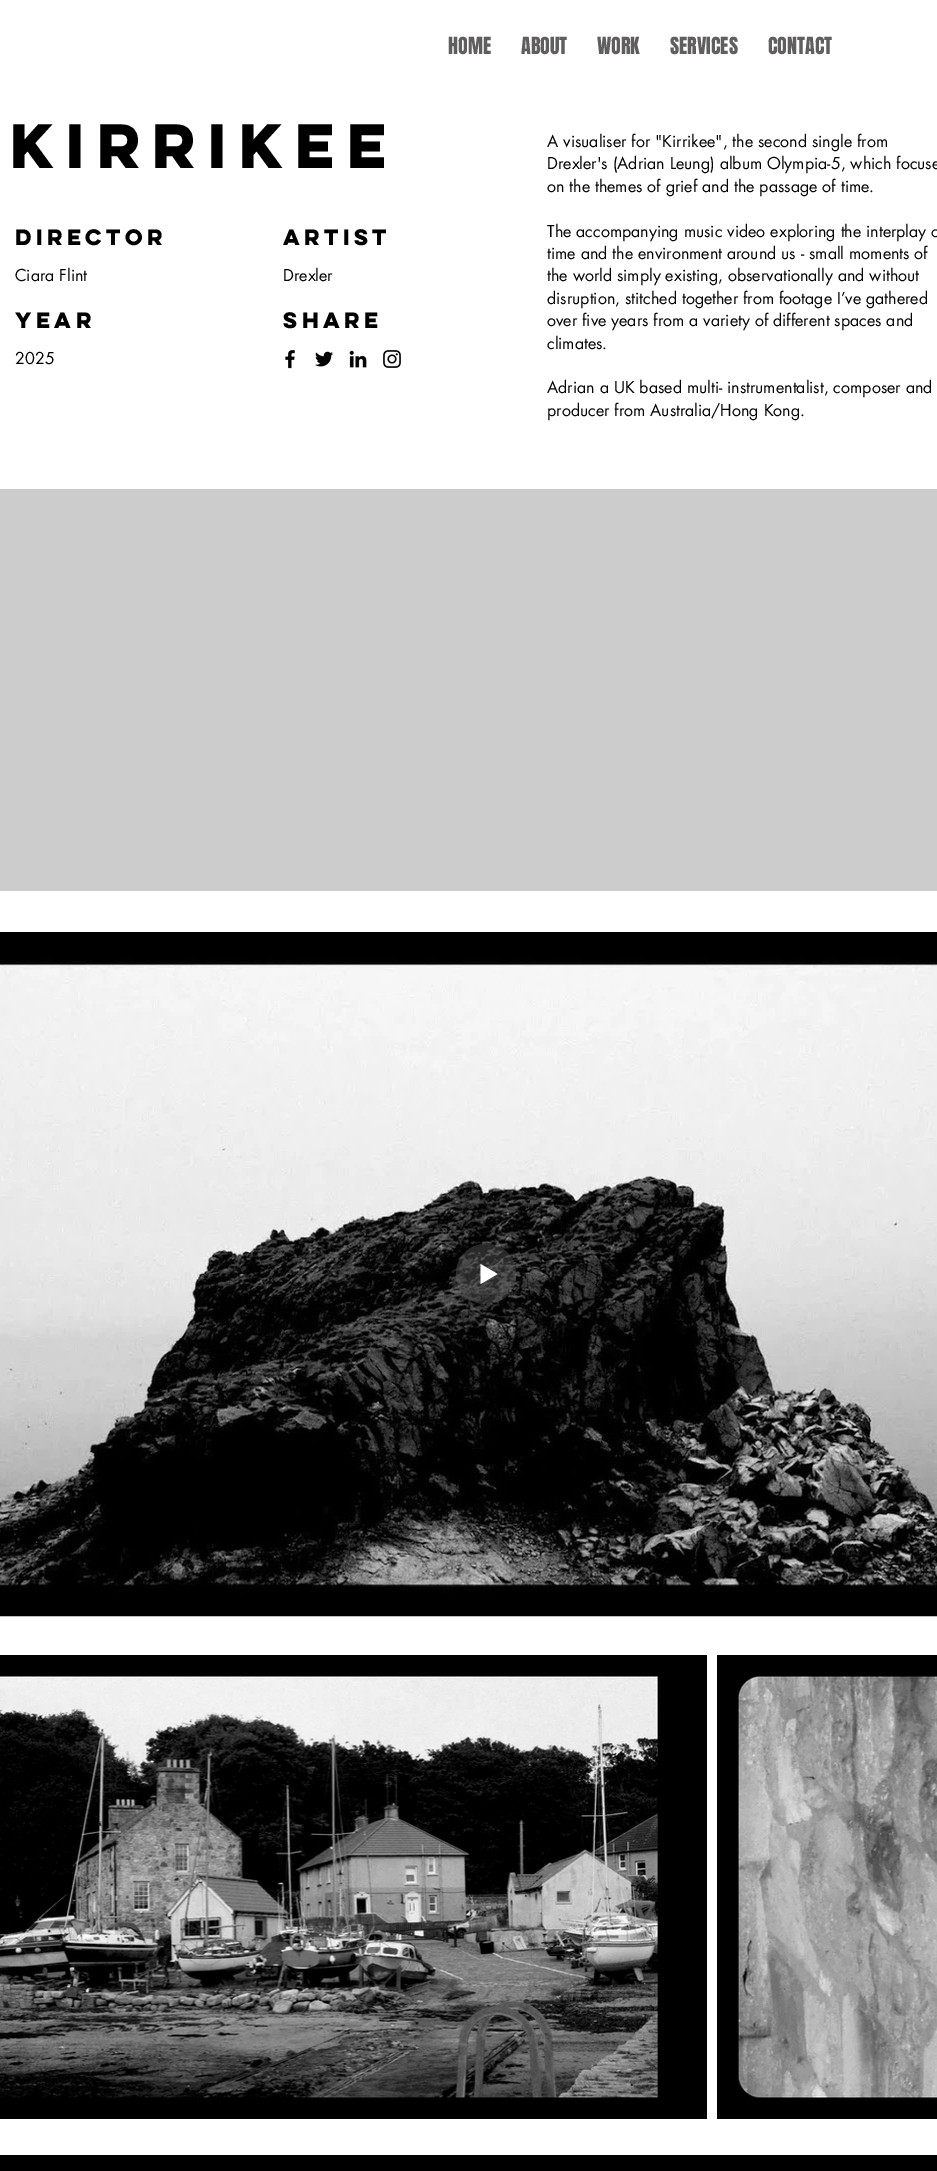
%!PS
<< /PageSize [937 2171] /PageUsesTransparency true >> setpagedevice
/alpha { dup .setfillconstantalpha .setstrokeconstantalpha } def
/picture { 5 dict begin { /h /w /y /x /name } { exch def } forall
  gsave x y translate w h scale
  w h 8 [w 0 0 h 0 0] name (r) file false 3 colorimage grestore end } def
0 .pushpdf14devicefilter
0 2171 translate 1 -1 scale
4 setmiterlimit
1 setgray
0 0 937 2171 rectfill
/Anton-Regular [20 0 0 -20 0 0] selectfont
0.376 0.369 0.369 setrgbcolor
448 54 moveto (HOME) show
521 54 moveto (ABOUT) show
597 54 moveto (WORK) show
670 54 moveto (SERVICES) show
768 54 moveto (CONTACT) show
/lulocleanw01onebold-Bold [56 0 0 -56 0 0] selectfont
0 setgray
10 168 moveto (KIRRIKEE) show
/lulocleanw01onebold-Bold [20 0 0 -20 0 0] selectfont
15 245 moveto (Director) show
283 245 moveto (Artist) show
/futura-Regular [16 0 0 -16 0 0] selectfont
15 281 moveto (Ciara Flint) show
283 281 moveto (Drexler) show
/lulocleanw01onebold-Bold [20 0 0 -20 0 0] selectfont
15 328 moveto (Year) show
283 328 moveto (Share) show
/futura-Regular [16 0 0 -16 0 0] selectfont
15 364 moveto (2025) show
(img1.rgb) 285 349 10 20 picture
(img2.rgb) 315 351 18 16 picture
(img3.rgb) 349 350 18 18 picture
(img4.rgb) 383 350 18 18 picture
547 147 moveto (A visualiser for "Kirrikee", the second single from) show
547 169 moveto (Drexler's \(Adrian Leung\) album Olympia-5, which focuse) show
547 192 moveto (on the themes of grief and the passage of time.) show
547 237 moveto (The accompanying music video exploring the interplay o) show
547 259 moveto (time and the environment around us - small moments of) show
547 281 moveto (the world simply existing, observationally and without) show
547 304 moveto (disruption, stitched together from footage I’ve gathered) show
547 326 moveto (over five years from a variety of different spaces and) show
547 349 moveto (climates.) show
547 393 moveto (Adrian a UK based multi- instrumentalist, composer and) show
547 416 moveto (producer from Australia/Hong Kong.) show
0.8 setgray
0 489 937 402 rectfill
0 setgray
20 setlinewidth
-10 942 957 664 rectstroke
(img5.rgb) 0 952 937 644 picture
0.42 alpha
0.376 0.369 0.369 setrgbcolor
newpath 486 1244 moveto 503 1244 516 1257 516 1274 curveto 516 1291 503 1304 486 1304 curveto 469 1304 456 1291 456 1274 curveto 456 1257 469 1244 486 1244 curveto closepath eofill
1 alpha
1 setgray
newpath 497.5 1274 moveto 480.5 1284 lineto 480.5 1264 lineto closepath fill
(img6.rgb) 0 1655 707 464 picture
(img7.rgb) 717 1655 220 464 picture
0 setgray
0 2155 937 16 rectfill
.poppdf14devicefilter showpage
